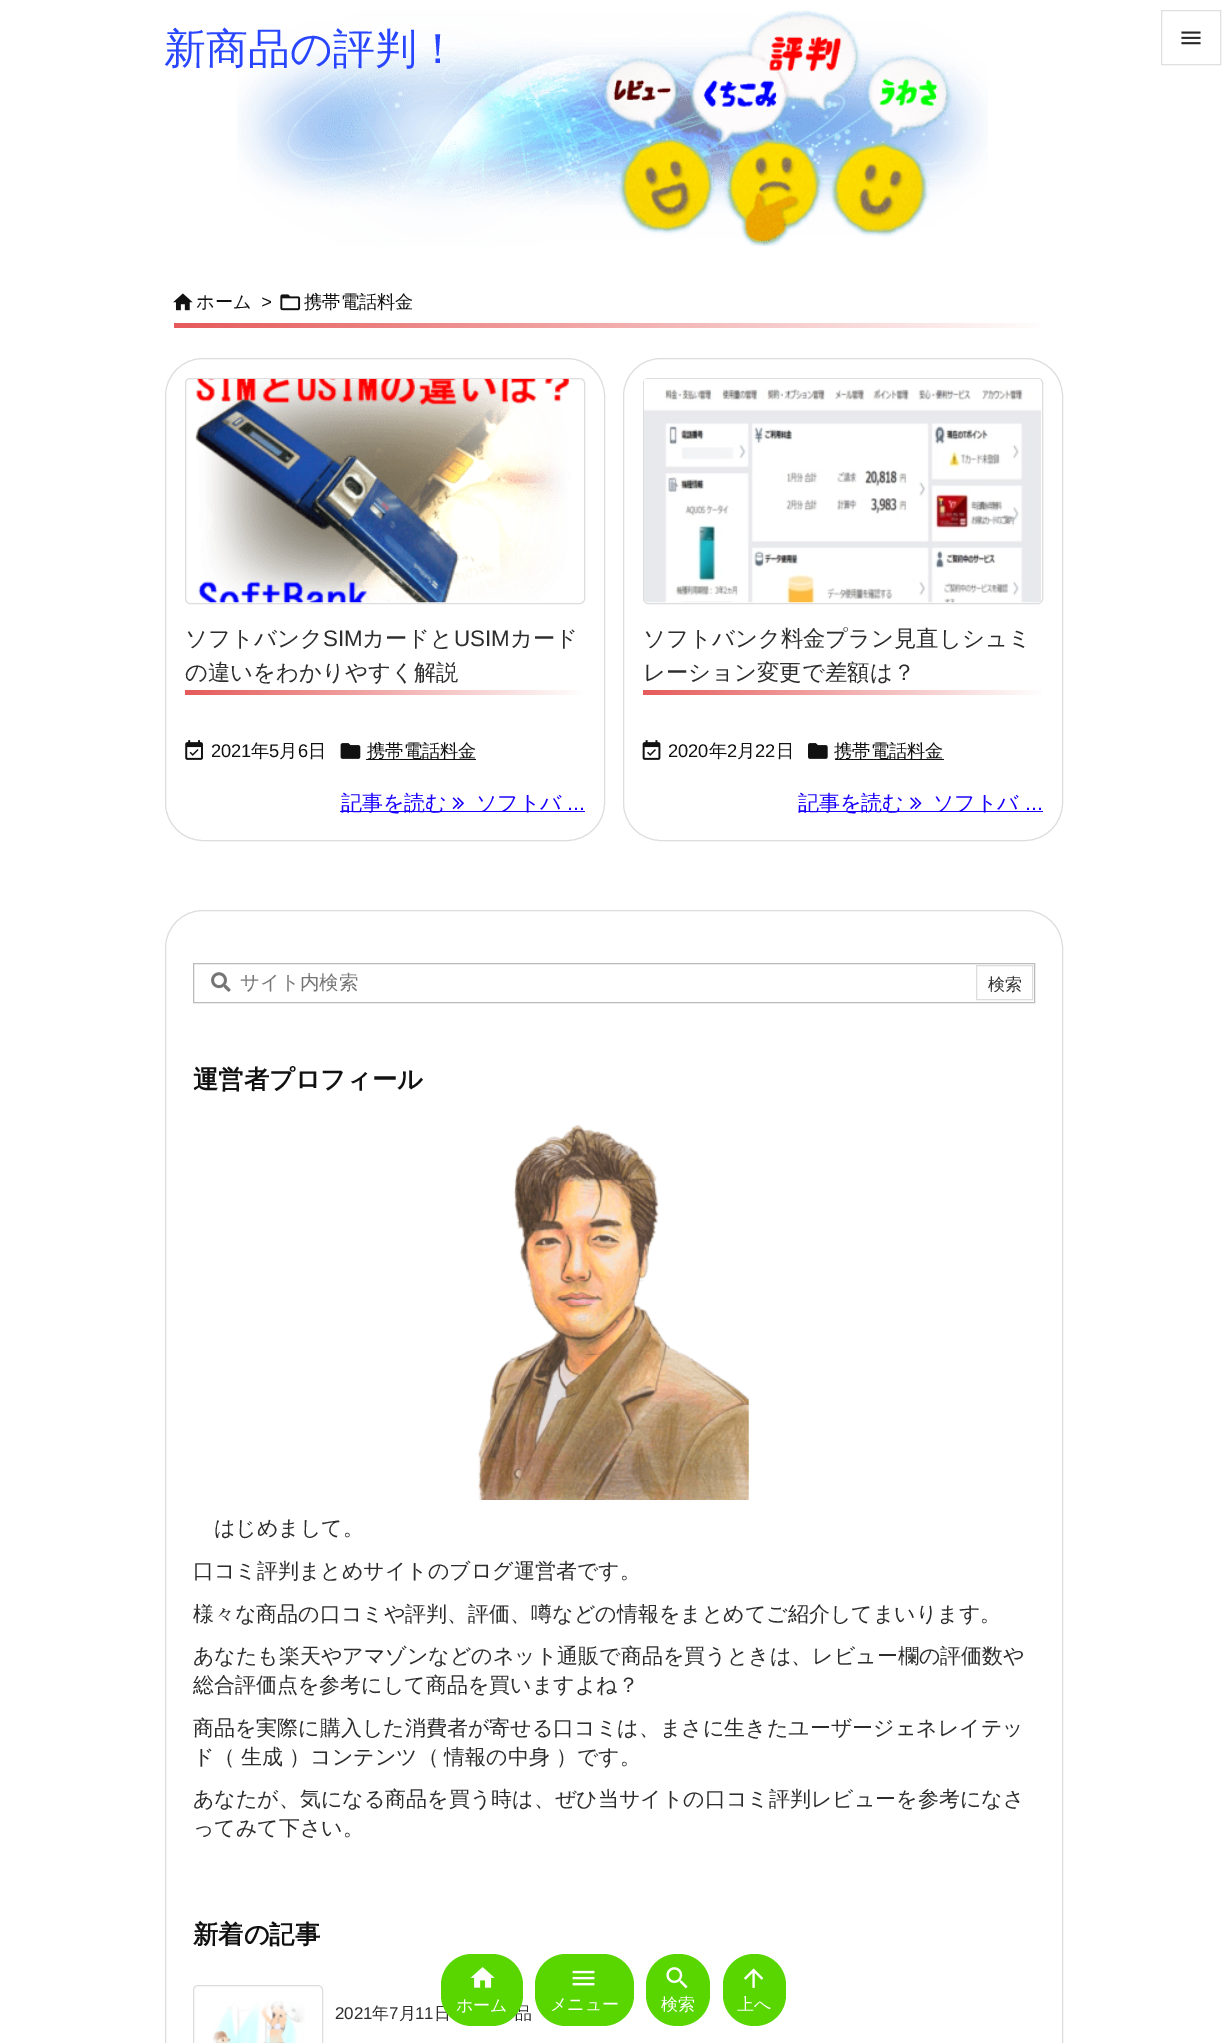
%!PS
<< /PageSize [1227 2043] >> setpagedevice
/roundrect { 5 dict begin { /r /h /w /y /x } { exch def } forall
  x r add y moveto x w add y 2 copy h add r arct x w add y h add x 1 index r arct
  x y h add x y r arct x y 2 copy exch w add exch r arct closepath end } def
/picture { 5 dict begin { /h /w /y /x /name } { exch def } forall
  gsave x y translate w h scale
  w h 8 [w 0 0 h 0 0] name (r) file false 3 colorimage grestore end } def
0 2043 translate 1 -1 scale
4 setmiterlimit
1 setgray
0 0 1227 2043 rectfill
(img1.rgb) 237 10 751 237 picture
/WenQuanYiZenHei-Medium [42 0 0 -42 0 0] selectfont
0.157 0.271 1 setrgbcolor
164 63 moveto (新商品の評判！) show
0.878 setgray
1161.5 10.5 59 54 rectstroke
(img2.rgb) 1181 31 20 14 picture
(img3.rgb) 173 293 20 18 picture
/WenQuanYiZenHei-Medium [18.25 0 0 -18.25 0 0] selectfont
0.067 setgray
196 308 moveto (ホーム) show
/LiberationSans-Italic [18.25 0 0 -18.25 0 0] selectfont
261 308 moveto (>) show
(img4.rgb) 280 294 21 17 picture
/WenQuanYiZenHei-Medium [18.25 0 0 -18.25 0 0] selectfont
304 308 moveto (携帯電話料金) show
gsave newpath 174 323 moveto 1041 323 lineto 1041 328 lineto 174 328 lineto closepath clip newpath
<< /ShadingType 2 /ColorSpace /DeviceRGB /Coords [174 325 1054 325] /Extend [true true] /Function << /FunctionType 2 /Domain [0 1] /C0 [0.902 0.353 0.353] /C1 [1 1 1] /N 1 >> >> shfill grestore
0.867 setgray
165.5 358.5 439 482 37.5 roundrect stroke
185.5 378.5 399 225 4.5 roundrect stroke
(img5.rgb) 195 378 376 225 picture
/WenQuanYiZenHei-Medium [22.4 0 0 -22.4 0 0] selectfont
0.176 setgray
185 646 moveto (ソフトバンク) show
/LiberationSans-Regular [22.4 0 0 -22.4 0 0] selectfont
323 646 moveto (SIM) show
/WenQuanYiZenHei-Medium [22.4 0 0 -22.4 0 0] selectfont
362 646 moveto (カードと) show
/LiberationSans-Regular [22.4 0 0 -22.4 0 0] selectfont
454 646 moveto (USIM) show
/WenQuanYiZenHei-Medium [22.4 0 0 -22.4 0 0] selectfont
510 646 moveto (カード) show
185 680 moveto (の違いをわかりやすく解説) show
gsave newpath 185 690 moveto 585 690 lineto 585 695 lineto 185 695 lineto closepath clip newpath
<< /ShadingType 2 /ColorSpace /DeviceRGB /Coords [185 693 585 693] /Extend [true true] /Function << /FunctionType 2 /Domain [0 1] /C0 [0.902 0.353 0.353] /C1 [1 1 1] /N 1 >> >> shfill grestore
(img6.rgb) 185 740 18 20 picture
/LiberationSans-Regular [18.25 0 0 -18.25 0 0] selectfont
0.067 setgray
211 757 moveto (2021) show
/WenQuanYiZenHei-Medium [18.25 0 0 -18.25 0 0] selectfont
251 757 moveto (年) show
/LiberationSans-Regular [18.25 0 0 -18.25 0 0] selectfont
269 757 moveto (5) show
/WenQuanYiZenHei-Medium [18.25 0 0 -18.25 0 0] selectfont
279 757 moveto (月) show
/LiberationSans-Regular [18.25 0 0 -18.25 0 0] selectfont
298 757 moveto (6) show
/WenQuanYiZenHei-Medium [18.25 0 0 -18.25 0 0] selectfont
308 757 moveto (日) show
(img7.rgb) 340 743 21 16 picture
366 759 110 1 rectfill
367 757 moveto (携帯電話料金) show
0.098 0 0.988 setrgbcolor
340 811 245 1 rectfill
/WenQuanYiZenHei-Medium [21 0 0 -21 0 0] selectfont
341 810 moveto (記事を読む) show
(img8.rgb) 452 797 12 13 picture
476 810 moveto (ソフトバ) show
/LiberationSans-Regular [21 0 0 -21 0 0] selectfont
567 810 moveto (...) show
0.867 setgray
623.5 358.5 439 482 37.5 roundrect stroke
643.5 378.5 399 225 4.5 roundrect stroke
(img9.rgb) 644 379 397 224 picture
/WenQuanYiZenHei-Medium [22.4 0 0 -22.4 0 0] selectfont
0.176 setgray
643 646 moveto (ソフトバンク料金プラン見直しシュミ) show
643 680 moveto (レーション変更で差額は？) show
gsave newpath 643 690 moveto 1043 690 lineto 1043 695 lineto 643 695 lineto closepath clip newpath
<< /ShadingType 2 /ColorSpace /DeviceRGB /Coords [643 693 1043 693] /Extend [true true] /Function << /FunctionType 2 /Domain [0 1] /C0 [0.902 0.353 0.353] /C1 [1 1 1] /N 1 >> >> shfill grestore
(img10.rgb) 642 740 19 20 picture
/LiberationSans-Regular [18.25 0 0 -18.25 0 0] selectfont
0.067 setgray
668 757 moveto (2020) show
/WenQuanYiZenHei-Medium [18.25 0 0 -18.25 0 0] selectfont
709 757 moveto (年) show
/LiberationSans-Regular [18.25 0 0 -18.25 0 0] selectfont
727 757 moveto (2) show
/WenQuanYiZenHei-Medium [18.25 0 0 -18.25 0 0] selectfont
737 757 moveto (月) show
/LiberationSans-Regular [18.25 0 0 -18.25 0 0] selectfont
755 757 moveto (22) show
/WenQuanYiZenHei-Medium [18.25 0 0 -18.25 0 0] selectfont
776 757 moveto (日) show
(img11.rgb) 808 743 20 16 picture
835 759 109 1 rectfill
834 757 moveto (携帯電話料金) show
0.098 0 0.988 setrgbcolor
799 811 244 1 rectfill
/WenQuanYiZenHei-Medium [21 0 0 -21 0 0] selectfont
798 810 moveto (記事を読む) show
(img12.rgb) 910 797 12 13 picture
933 810 moveto (ソフトバ) show
/LiberationSans-Regular [21 0 0 -21 0 0] selectfont
1025 810 moveto (...) show
0.867 setgray
165.5 910.5 897 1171 37.5 roundrect stroke
0.733 setgray
193.5 963.5 841 39 rectstroke
(img13.rgb) 211 972 20 20 picture
/WenQuanYiZenHei-Medium [19.5 0 0 -19.5 0 0] selectfont
0.459 setgray
240 989 moveto (サイト内検索) show
0.867 setgray
976.5 965.5 56 34 rectstroke
/WenQuanYiZenHei-Medium [17 0 0 -17 0 0] selectfont
0.2 setgray
988 990 moveto (検索) show
/WenQuanYiZenHei-Bold [25.25 0 0 -25.25 0 0] selectfont
0.067 setgray
193 1088 moveto (運営者プロフィール) show
(img14.rgb) 478 1125 271 375 picture
/WenQuanYiZenHei-Medium [21 0 0 -21 0 0] selectfont
0.176 setgray
214 1535 moveto (はじめまして。) show
193 1578 moveto (口コミ評判まとめサイトのブログ運営者です。) show
193 1621 moveto (様々な商品の口コミや評判、評価、噂などの情報をまとめてご紹介してまいります。) show
193 1663 moveto (あなたも楽天やアマゾンなどのネット通販で商品を買うときは、レビュー欄の評価数や) show
193 1692 moveto (総合評価点を参考にして商品を買いますよね？) show
193 1735 moveto (商品を実際に購入した消費者が寄せる口コミは、まさに生きたユーザージェネレイテッ) show
193 1764 moveto -0.5 0 32 (ド（ 生成 ）コンテンツ（ 情報の中身 ）です。) widthshow
193 1806 moveto (あなたが、気になる商品を買う時は、ぜひ当サイトの口コミ評判レビューを参考になさ) show
193 1835 moveto (ってみて下さい。) show
/WenQuanYiZenHei-Bold [25.25 0 0 -25.25 0 0] selectfont
0.067 setgray
193 1943 moveto (新着の記事) show
0.867 setgray
193.5 1985.5 129 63 4.5 roundrect stroke
(img15.rgb) 212 2001 93 42 picture
/LiberationSans-Regular [17 0 0 -17 0 0] selectfont
0.176 setgray
335 2019 moveto (2021) show
/WenQuanYiZenHei-Medium [17 0 0 -17 0 0] selectfont
372 2019 moveto (年) show
/LiberationSans-Regular [17 0 0 -17 0 0] selectfont
389 2019 moveto (7) show
/WenQuanYiZenHei-Medium [17 0 0 -17 0 0] selectfont
399 2019 moveto (月) show
/LiberationSans-Regular [17 0 0 -17 0 0] selectfont
415 2019 moveto (11) show
/WenQuanYiZenHei-Medium [17 0 0 -17 0 0] selectfont
434 2019 moveto (日) show
515 2019 moveto (品) show
0.349 0.839 0 setrgbcolor
441 1954 82 72 31 roundrect fill
(img16.rgb) 470 1967 25 21 picture
1 setgray
456 2011 moveto (ホーム) show
0.349 0.839 0 setrgbcolor
535 1954 99 72 31 roundrect fill
(img17.rgb) 572 1970 23 16 picture
1 setgray
550 2010 moveto (メニュー) show
0.349 0.839 0 setrgbcolor
646 1954 64 72 31 roundrect fill
(img18.rgb) 666 1967 22 22 picture
1 setgray
661 2010 moveto (検索) show
0.349 0.839 0 setrgbcolor
723 1954 63 72 31 roundrect fill
(img19.rgb) 744 1968 20 20 picture
1 setgray
737 2010 moveto (上へ) show
showpage
